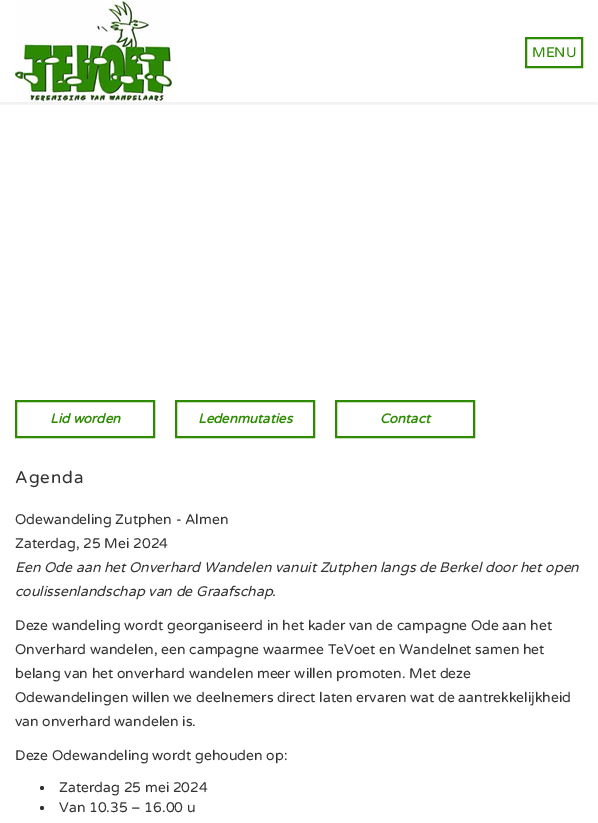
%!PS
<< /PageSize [598 823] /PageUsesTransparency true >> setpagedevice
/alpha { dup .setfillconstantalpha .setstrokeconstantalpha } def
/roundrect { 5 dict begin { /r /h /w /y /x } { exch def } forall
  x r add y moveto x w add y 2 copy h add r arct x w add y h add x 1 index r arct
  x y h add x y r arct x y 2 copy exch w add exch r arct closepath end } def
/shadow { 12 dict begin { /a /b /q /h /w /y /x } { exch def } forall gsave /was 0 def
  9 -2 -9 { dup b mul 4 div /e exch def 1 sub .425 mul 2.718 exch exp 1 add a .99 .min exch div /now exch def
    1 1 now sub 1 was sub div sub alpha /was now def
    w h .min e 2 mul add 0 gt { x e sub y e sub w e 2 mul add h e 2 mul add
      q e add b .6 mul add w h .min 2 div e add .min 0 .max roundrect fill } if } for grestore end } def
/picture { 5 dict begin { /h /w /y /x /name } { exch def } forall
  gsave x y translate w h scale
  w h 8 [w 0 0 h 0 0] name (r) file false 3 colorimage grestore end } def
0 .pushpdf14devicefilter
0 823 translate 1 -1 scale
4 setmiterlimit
1 setgray
0 0 598 823 rectfill
gsave
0 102 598 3 rectclip
0 setgray
0 3 598 102 0 1.5 0.05 shadow
grestore
(img1.rgb) 15 1 157 100 picture
0.173 0.545 0.004 setrgbcolor
2 setlinewidth
526 38 56 29 rectstroke
/VarelaRound-Regular [14 0 0 -14 0 0] selectfont
532 57 moveto (MENU) show
16 401 138 36 rectstroke
/VarelaRound-BoldItalic [13.25 0 0 -13.25 0 0] selectfont
50 423 moveto (Lid worden) show
176 401 138 36 rectstroke
198 423 moveto (Ledenmutaties) show
336 401 138 36 rectstroke
380 423 moveto (Contact) show
/VarelaRound-Regular [17 0 0 -17 0 0] selectfont
0.2 setgray
15 483 moveto 1 0 (Agenda) ashow
/VarelaRound-Regular [14 0 0 -14 0 0] selectfont
15 524 moveto (Odewandeling Zutphen - Almen) show
15 548 moveto (Zaterdag, 25 Mei 2024) show
/VarelaRound-Italic [14 0 0 -14 0 0] selectfont
15 572 moveto (Een Ode aan het Onverhard Wandelen vanuit Zutphen langs de Berkel door het open) show
15 596 moveto (coulissenlandschap van de Graafschap.) show
/VarelaRound-Regular [14 0 0 -14 0 0] selectfont
15 630 moveto (Deze wandeling wordt georganiseerd in het kader van de campagne Ode aan het) show
15 654 moveto (Onverhard wandelen, een campagne waarmee TeVoet en Wandelnet samen het) show
15 678 moveto (belang van het onverhard wandelen meer willen promoten. Met deze) show
15 702 moveto (Odewandelingen willen we deelnemers direct laten ervaren wat de aantrekkelijkheid) show
15 726 moveto (van onverhard wandelen is.) show
15 760 moveto (Deze Odewandeling wordt gehouden op:) show
newpath 42 788 2 0 360 arc closepath fill
59 792 moveto (Zaterdag 25 mei 2024) show
newpath 42 808 2 0 360 arc closepath fill
59 812 moveto (Van 10.35 – 16.00 u) show
.poppdf14devicefilter showpage
